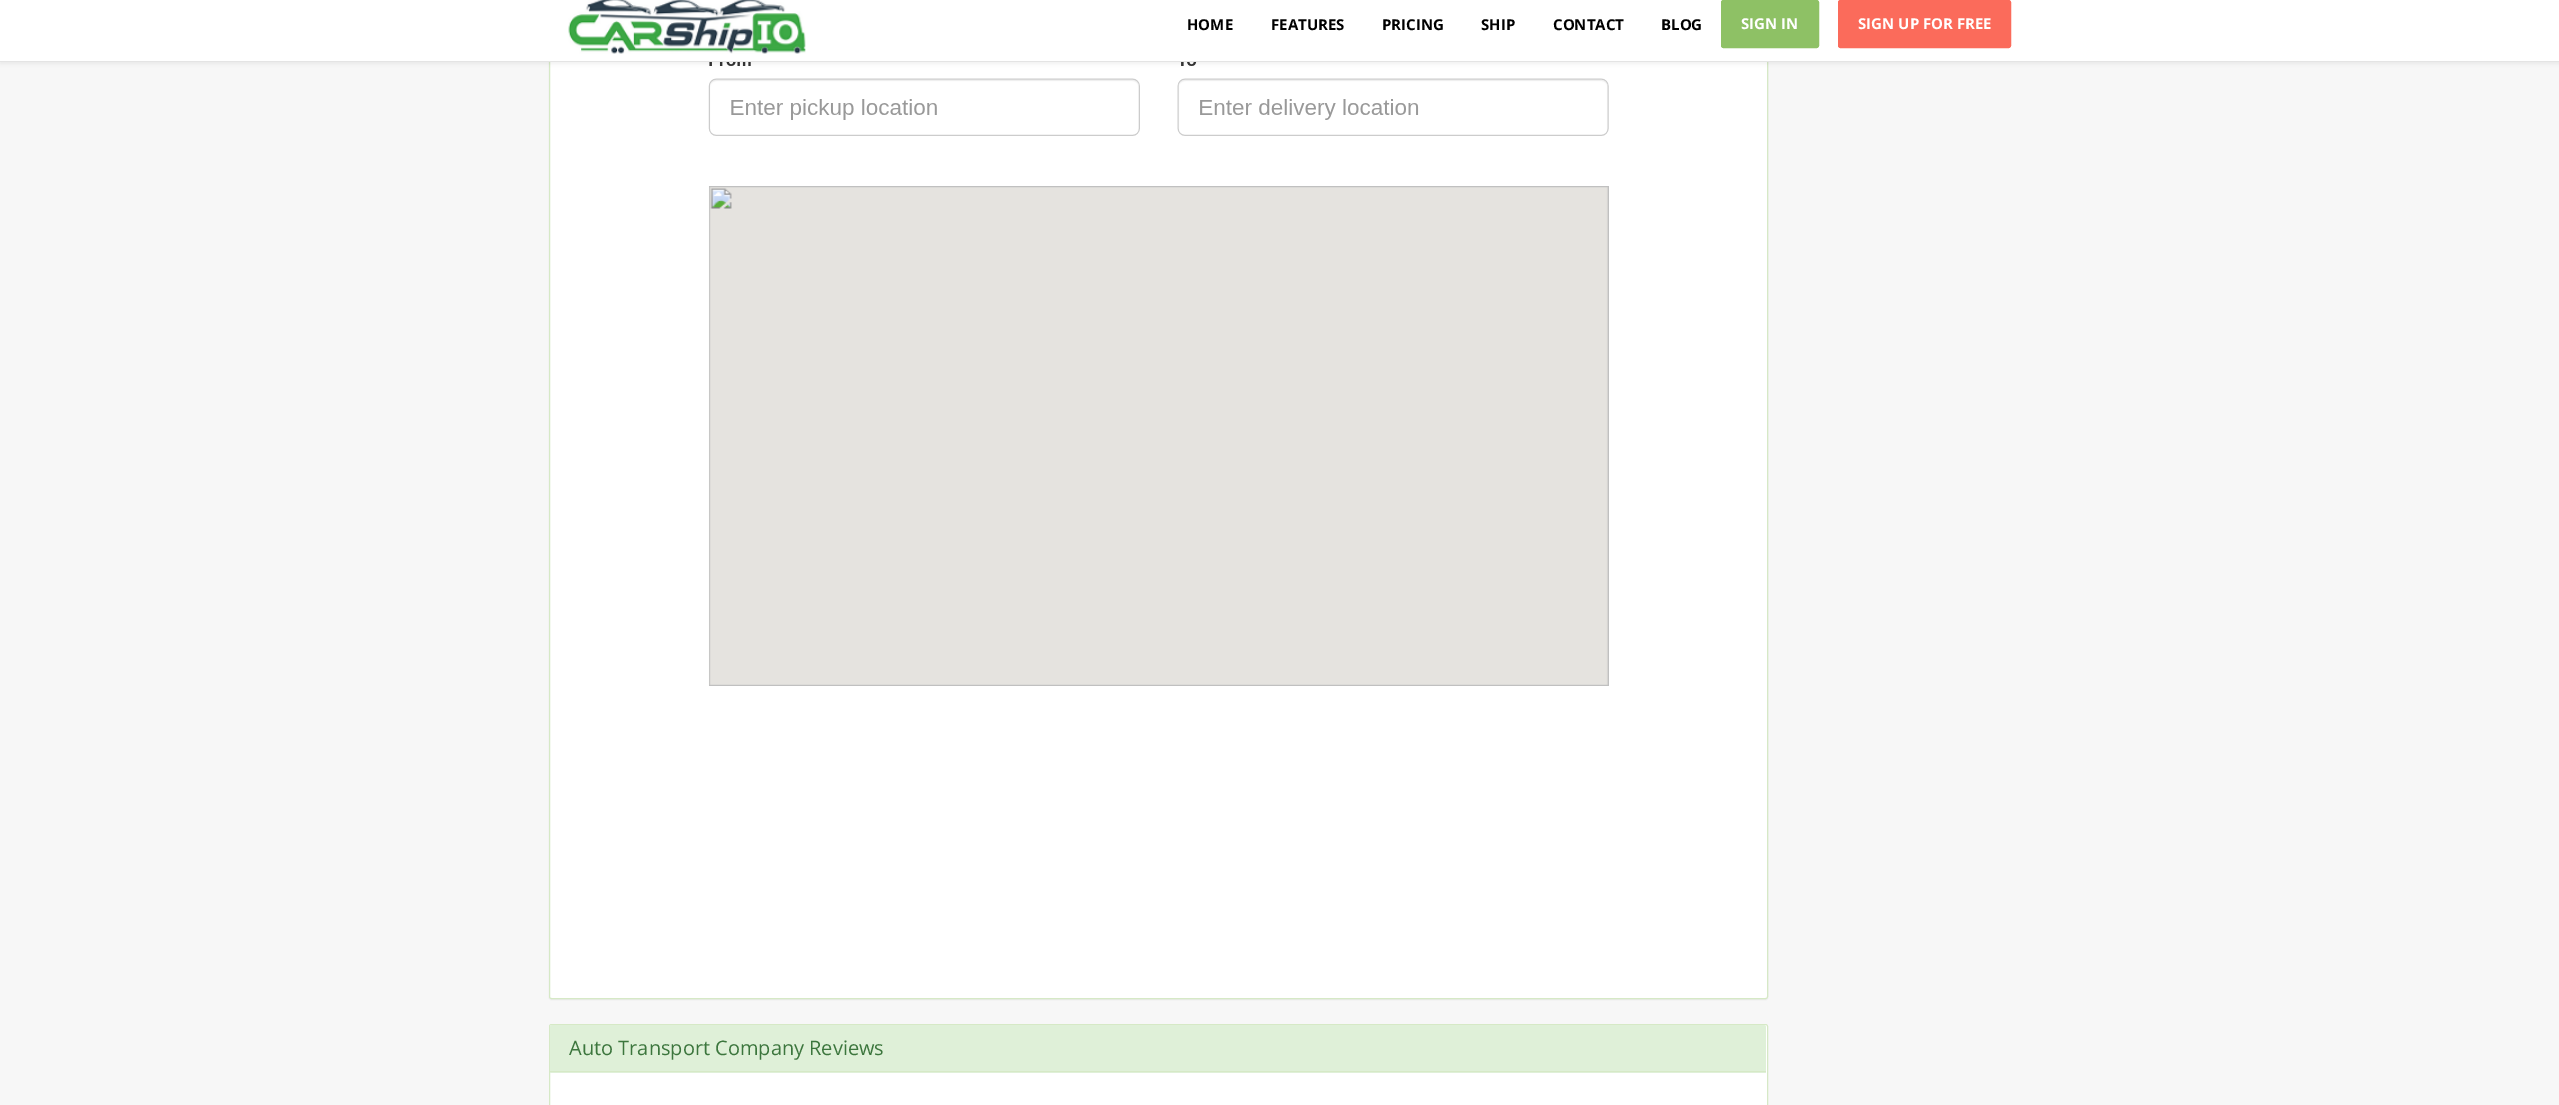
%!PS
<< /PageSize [2559 1105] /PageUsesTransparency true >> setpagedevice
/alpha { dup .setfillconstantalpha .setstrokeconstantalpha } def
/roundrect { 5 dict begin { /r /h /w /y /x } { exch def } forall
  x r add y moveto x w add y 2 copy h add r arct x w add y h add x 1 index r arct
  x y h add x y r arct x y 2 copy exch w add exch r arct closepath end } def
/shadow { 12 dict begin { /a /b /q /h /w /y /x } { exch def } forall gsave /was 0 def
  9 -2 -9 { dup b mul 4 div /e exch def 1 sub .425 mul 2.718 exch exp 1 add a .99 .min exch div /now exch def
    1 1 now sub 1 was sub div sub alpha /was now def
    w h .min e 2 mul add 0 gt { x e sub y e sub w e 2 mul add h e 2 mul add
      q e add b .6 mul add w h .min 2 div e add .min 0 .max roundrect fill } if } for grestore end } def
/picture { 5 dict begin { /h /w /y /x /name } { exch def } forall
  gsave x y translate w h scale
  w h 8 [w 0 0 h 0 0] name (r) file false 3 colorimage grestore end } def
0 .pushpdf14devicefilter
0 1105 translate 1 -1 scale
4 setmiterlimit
0.969 setgray
0 0 2559 1105 rectfill
0 setgray
549 -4 1219 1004 2.5 0.5 0.05 shadow
1 setgray
549.5 -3.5 1218 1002 2 roundrect gsave fill grestore
0.839 0.914 0.776 setrgbcolor
stroke
(img2.rgb) 708 62 901 624 picture
0 setgray
0 1 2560 63 0 2 0.05 shadow
1 setgray
0 0 2559 61 rectfill
0.894 setgray
0 61 2559 1 rectfill
(img1.rgb) 568 0 238 54 picture
/OpenSans-Bold [15 0 0 -15 0 0] selectfont
0 setgray
1187 30 moveto (HOME) show
1271 30 moveto (FEATURES) show
1382 30 moveto (PRICING) show
1481 30 moveto (SHIP) show
1553 30 moveto (CONTACT) show
1661 30 moveto (BLOG) show
0.557 0.757 0.396 setrgbcolor
1721.5 0.5 97 47 2 roundrect gsave fill grestore
stroke
1 setgray
1741 29 moveto (SIGN IN) show
0.984 0.42 0.357 setrgbcolor
1838.5 0.5 172 47 2 roundrect gsave fill grestore
stroke
1 setgray
1858 29 moveto (SIGN UP FOR FREE) show
549.5 1024.5 1218 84 2 roundrect gsave fill grestore
0.839 0.914 0.776 setrgbcolor
stroke
0.875 0.941 0.847 setrgbcolor
newpath 552.5 1025 moveto 1763.5 1025 lineto 1765 1025 1766 1026 1766 1027.5 curveto 1766 1073 lineto 550 1073 lineto 550 1027.5 lineto 550 1026 551 1025 552.5 1025 curveto closepath fill
0.839 0.914 0.776 setrgbcolor
550 1071 1216 1 rectfill
/OpenSans-Regular [20 0 0 -20 0 0] selectfont
0.235 0.463 0.239 setrgbcolor
569 1055 moveto (Auto Transport Company Reviews) show
.poppdf14devicefilter showpage
